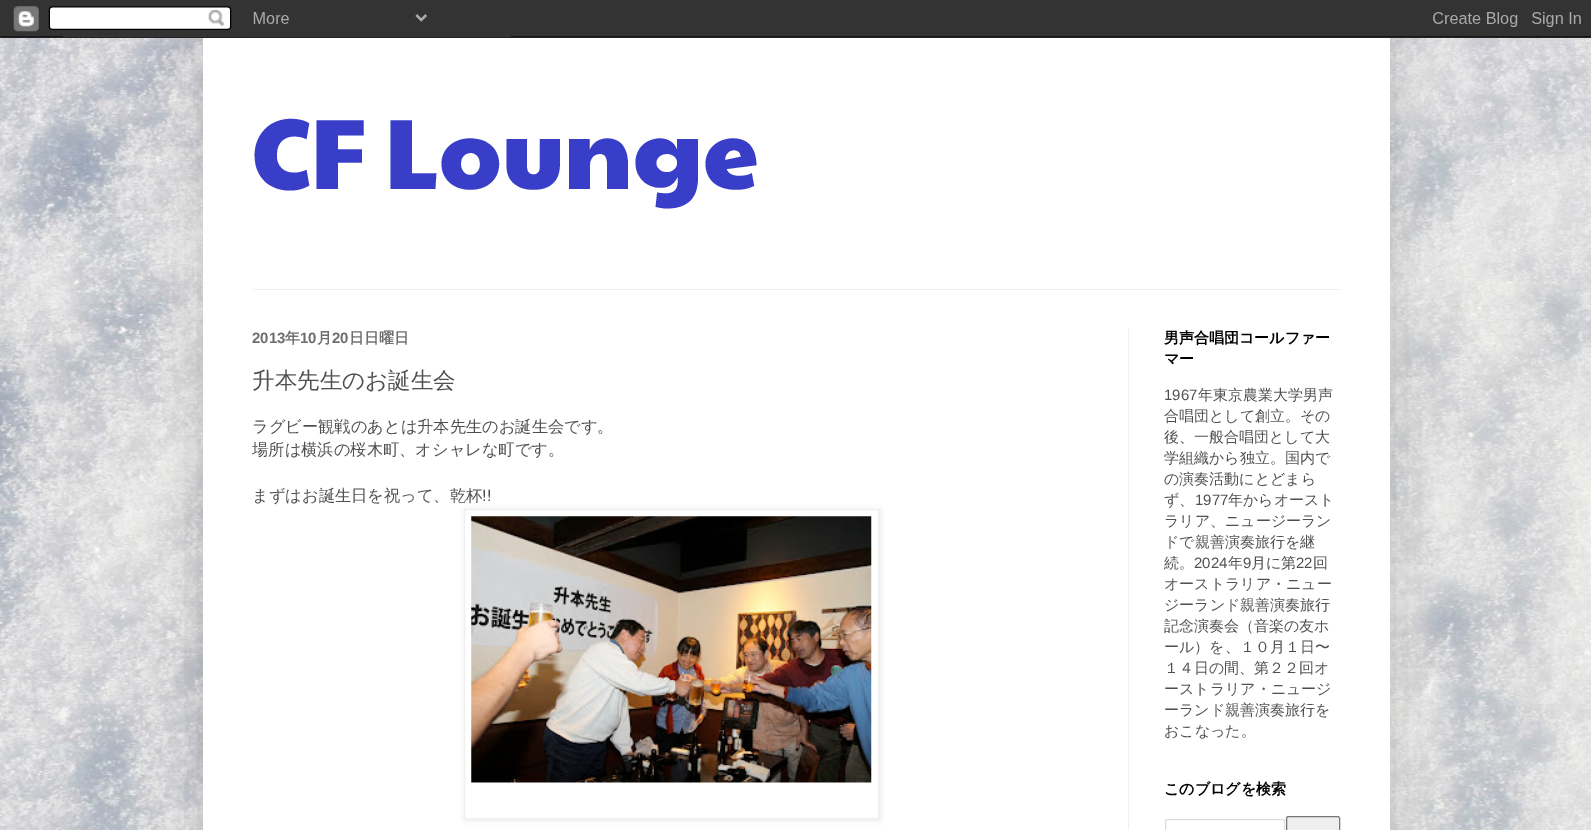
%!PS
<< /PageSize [1591 830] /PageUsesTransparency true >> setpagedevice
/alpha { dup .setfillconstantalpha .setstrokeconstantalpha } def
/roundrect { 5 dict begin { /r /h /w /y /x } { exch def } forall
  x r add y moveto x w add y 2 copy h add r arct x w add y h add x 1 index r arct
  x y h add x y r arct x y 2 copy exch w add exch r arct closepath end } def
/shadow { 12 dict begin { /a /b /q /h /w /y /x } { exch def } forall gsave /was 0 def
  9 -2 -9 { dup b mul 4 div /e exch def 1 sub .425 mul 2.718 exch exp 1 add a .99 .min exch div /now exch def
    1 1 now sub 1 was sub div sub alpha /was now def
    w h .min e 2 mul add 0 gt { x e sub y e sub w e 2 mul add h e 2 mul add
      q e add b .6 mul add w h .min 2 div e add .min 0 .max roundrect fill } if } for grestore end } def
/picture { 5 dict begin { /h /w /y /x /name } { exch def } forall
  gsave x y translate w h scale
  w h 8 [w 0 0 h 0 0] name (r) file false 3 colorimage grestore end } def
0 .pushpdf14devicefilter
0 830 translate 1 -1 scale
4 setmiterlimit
1 setgray
0 0 1591 830 rectfill
(img1.rgb) 0 500 1591 330 picture
(img3.rgb) 0 36 1591 464 picture
0 setgray
203 38 1187 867 0 25 0.15 shadow
(img2.rgb) 0 0 1591 38 picture
1 setgray
203 38 1187 792 rectfill
/PaytoneOne-Regular [100 0 0 -100 0 0] selectfont
0.224 0.243 0.788 setrgbcolor
252 189 moveto (CF Lounge) show
0.933 setgray
253 289 1087 1 rectfill
0.941 setgray
1128 328 1 502 rectfill
/LiberationSans-Bold [15 0 0 -15 0 0] selectfont
0.427 0.427 0.431 setrgbcolor
252 343 moveto (2013) show
/WenQuanYiZenHei-Bold [15 0 0 -15 0 0] selectfont
285 343 moveto (年) show
/LiberationSans-Bold [15 0 0 -15 0 0] selectfont
300 343 moveto (10) show
/WenQuanYiZenHei-Bold [15 0 0 -15 0 0] selectfont
317 343 moveto (月) show
/LiberationSans-Bold [15 0 0 -15 0 0] selectfont
332 343 moveto (20) show
/WenQuanYiZenHei-Bold [15 0 0 -15 0 0] selectfont
349 343 moveto (日日曜日) show
/WenQuanYiZenHei-Medium [22.5 0 0 -22.5 0 0] selectfont
0.314 setgray
252 388 moveto (升本先生のお誕生会) show
/WenQuanYiZenHei-Medium [16.25 0 0 -16.25 0 0] selectfont
252 432 moveto (ラグビー観戦のあとは升本先生のお誕生会です。) show
252 455 moveto (場所は横浜の桜木町、オシャレな町です。) show
252 501 moveto (まずはお誕生日を祝って、乾杯) show
/LiberationSans-Regular [16.25 0 0 -16.25 0 0] selectfont
482 501 moveto (!!) show
0 setgray
465 510 415 310 0 3 0.1 shadow
1 setgray
newpath 464.5 509.5 moveto 878.5 509.5 lineto 878.5 818.5 lineto 464.5 818.5 lineto closepath gsave fill grestore
0.941 setgray
stroke
(img4.rgb) 471 516 401 267 picture
/WenQuanYiZenHei-Bold [15 0 0 -15 0 0] selectfont
0 setgray
1164 343 moveto (男声合唱団コールファー) show
1164 364 moveto (マー) show
/LiberationSans-Regular [15 0 0 -15 0 0] selectfont
0.314 setgray
1164 400 moveto (1967) show
/WenQuanYiZenHei-Medium [15 0 0 -15 0 0] selectfont
1198 400 moveto (年東京農業大学男声) show
1164 421 moveto (合唱団として創立。その) show
1164 442 moveto (後、一般合唱団として大) show
1164 463 moveto (学組織から独立。国内で) show
1164 484 moveto (の演奏活動にとどまら) show
1164 505 moveto (ず、) show
/LiberationSans-Regular [15 0 0 -15 0 0] selectfont
1195 505 moveto (1977) show
/WenQuanYiZenHei-Medium [15 0 0 -15 0 0] selectfont
1228 505 moveto (年からオースト) show
1164 526 moveto (ラリア、ニュージーラン) show
1164 547 moveto (ドで親善演奏旅行を継) show
1164 568 moveto (続。) show
/LiberationSans-Regular [15 0 0 -15 0 0] selectfont
1194 568 moveto (2024) show
/WenQuanYiZenHei-Medium [15 0 0 -15 0 0] selectfont
1228 568 moveto (年) show
/LiberationSans-Regular [15 0 0 -15 0 0] selectfont
1243 568 moveto (9) show
/WenQuanYiZenHei-Medium [15 0 0 -15 0 0] selectfont
1251 568 moveto (月に第) show
/LiberationSans-Regular [15 0 0 -15 0 0] selectfont
1296 568 moveto (22) show
/WenQuanYiZenHei-Medium [15 0 0 -15 0 0] selectfont
1313 568 moveto (回) show
1164 589 moveto (オーストラリア・ニュー) show
1164 610 moveto (ジーランド親善演奏旅行) show
1164 631 moveto (記念演奏会（音楽の友ホ) show
1164 652 moveto (ール）を、１０月１日〜) show
1164 673 moveto (１４日の間、第２２回オ) show
1164 694 moveto (ーストラリア・ニュージ) show
1164 715 moveto (ーランド親善演奏旅行を) show
1164 736 moveto (おこなった。) show
/WenQuanYiZenHei-Bold [15 0 0 -15 0 0] selectfont
0 setgray
1164 794 moveto (このブログを検索) show
0.867 setgray
1165.5 819.5 119 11 rectstroke
0.937 setgray
1286.5 816.5 53 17 2 roundrect gsave fill grestore
0.463 setgray
stroke
.poppdf14devicefilter showpage
